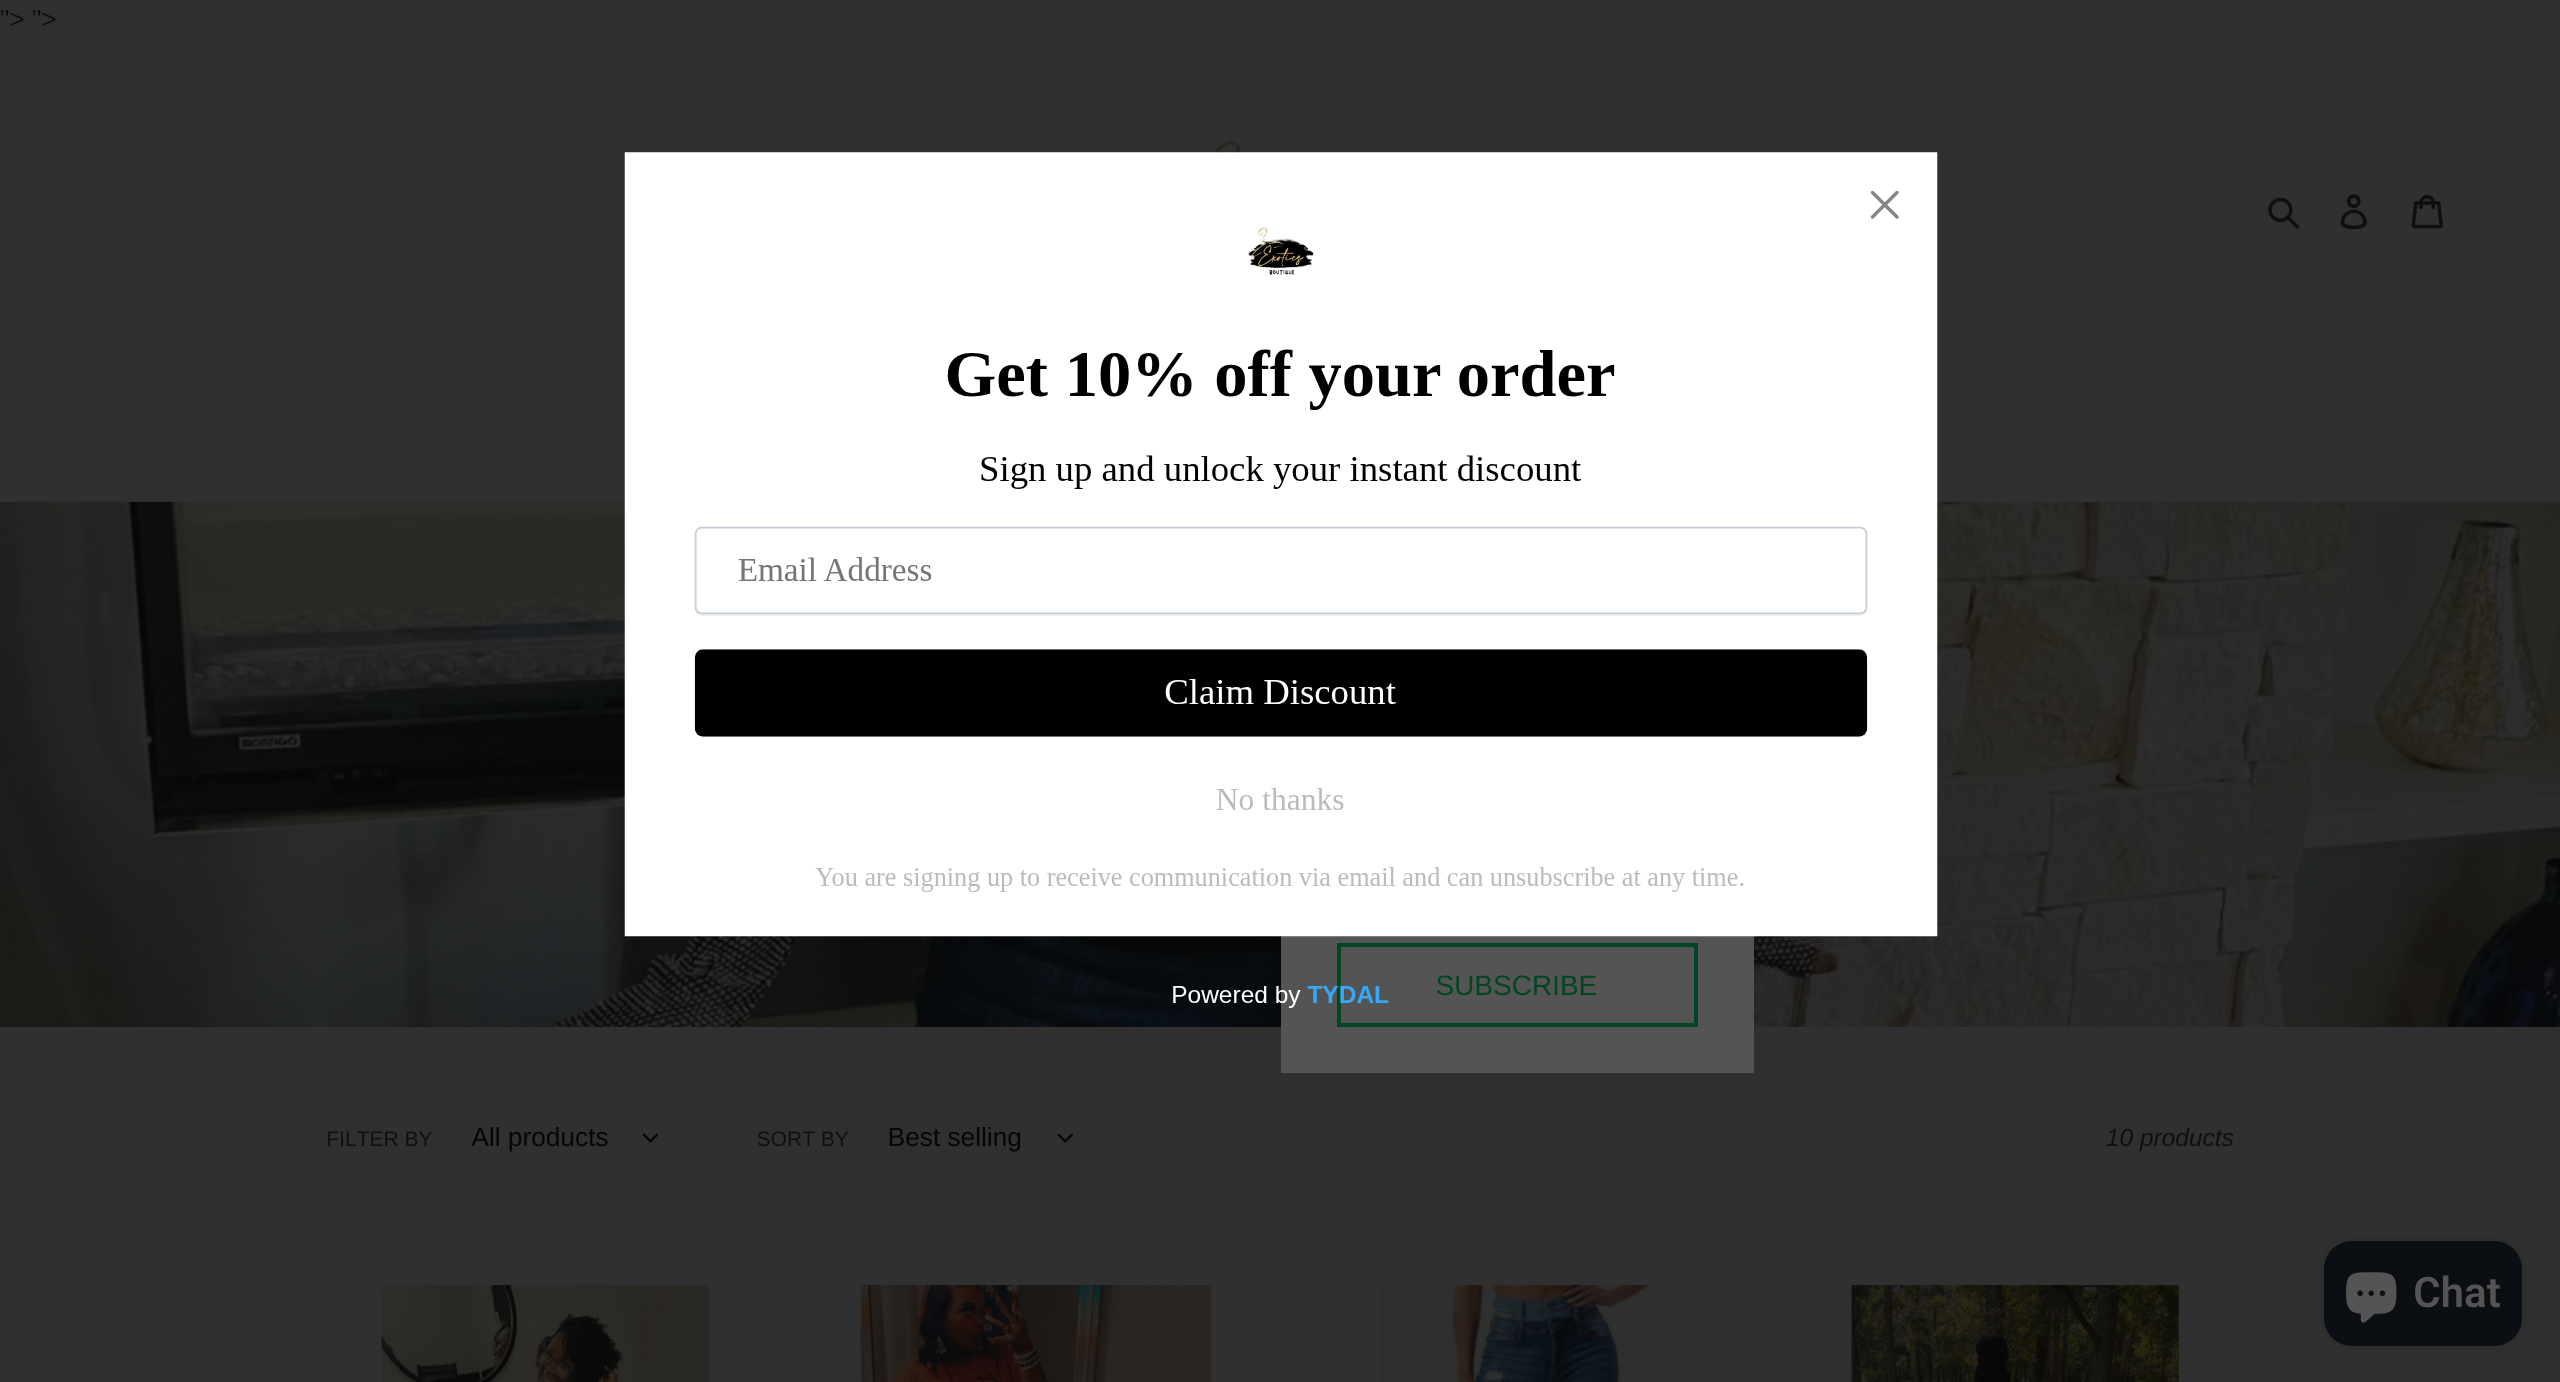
%!PS
<< /PageSize [2560 1382] /PageUsesTransparency true >> setpagedevice
/alpha { dup .setfillconstantalpha .setstrokeconstantalpha } def
/roundrect { 5 dict begin { /r /h /w /y /x } { exch def } forall
  x r add y moveto x w add y 2 copy h add r arct x w add y h add x 1 index r arct
  x y h add x y r arct x y 2 copy exch w add exch r arct closepath end } def
/shadow { 12 dict begin { /a /b /q /h /w /y /x } { exch def } forall gsave /was 0 def
  9 -2 -9 { dup b mul 4 div /e exch def 1 sub .425 mul 2.718 exch exp 1 add a .99 .min exch div /now exch def
    1 1 now sub 1 was sub div sub alpha /was now def
    w h .min e 2 mul add 0 gt { x e sub y e sub w e 2 mul add h e 2 mul add
      q e add b .6 mul add w h .min 2 div e add .min 0 .max roundrect fill } if } for grestore end } def
/picture { 5 dict begin { /h /w /y /x /name } { exch def } forall
  gsave x y translate w h scale
  w h 8 [w 0 0 h 0 0] name (r) file false 3 colorimage grestore end } def
0 .pushpdf14devicefilter
0 1382 translate 1 -1 scale
4 setmiterlimit
0.569 0.573 0.573 setrgbcolor
0 0 2560 1382 rectfill
/LiberationSans-Regular [26.25 0 0 -26.25 0 0] selectfont
0.18 0.184 0.184 setrgbcolor
0 28 moveto ("> ">) show
(img2.rgb) 1187 139 185 14 picture
(img3.rgb) 2268 197 32 32 picture
(img4.rgb) 2340 194 27 35 picture
(img5.rgb) 2411 194 32 35 picture
0.529 0.533 0.533 setrgbcolor
0 501 2560 1 rectfill
(img6.rgb) 0 502 2560 525 picture
1 setgray
1281 936 473 137 rectfill
0 0.847 0.388 setrgbcolor
4 setlinewidth
1339 945 357 80 rectstroke
/LiberationSans-Regular [28 0 0 -28 0 0] selectfont
1435 995 moveto (SUBSCRIBE) show
0.529 0.533 0.533 setrgbcolor
0 1089 2560 2 rectfill
0 1187 2560 2 rectfill
/LiberationSans-Regular [21 0 0 -21 0 0] selectfont
0.18 0.184 0.184 setrgbcolor
326 1146 moveto (FILTER BY) show
/LiberationSans-Regular [26.25 0 0 -26.25 0 0] selectfont
0.067 0.071 0.071 setrgbcolor
471 1146 moveto (All products) show
(img7.rgb) 642 1133 16 10 picture
/LiberationSans-Regular [21 0 0 -21 0 0] selectfont
0.18 0.184 0.184 setrgbcolor
757 1146 moveto (SORT BY) show
/LiberationSans-Regular [26.25 0 0 -26.25 0 0] selectfont
0.067 0.071 0.071 setrgbcolor
888 1146 moveto (Best selling) show
(img8.rgb) 1057 1133 16 10 picture
/LiberationSans-Italic [24.5 0 0 -24.5 0 0] selectfont
0.18 0.184 0.184 setrgbcolor
2106 1146 moveto (10 products) show
(img9.rgb) 381 1285 328 97 picture
(img10.rgb) 860 1285 351 97 picture
(img11.rgb) 1381 1285 290 97 picture
(img12.rgb) 1851 1285 328 97 picture
0 setgray
2324 1241 198 105 28 4.5 0.15 shadow
0.125 0.165 0.212 setrgbcolor
2324 1241 198 105 28 roundrect fill
(img13.rgb) 2346 1272 51 51 picture
/Roboto-SemiBold [42 0 0 -42 0 0] selectfont
1 setgray
2413 1307 moveto (Chat) show
(img1.rgb) 0 0 2560 1382 picture
.poppdf14devicefilter showpage
